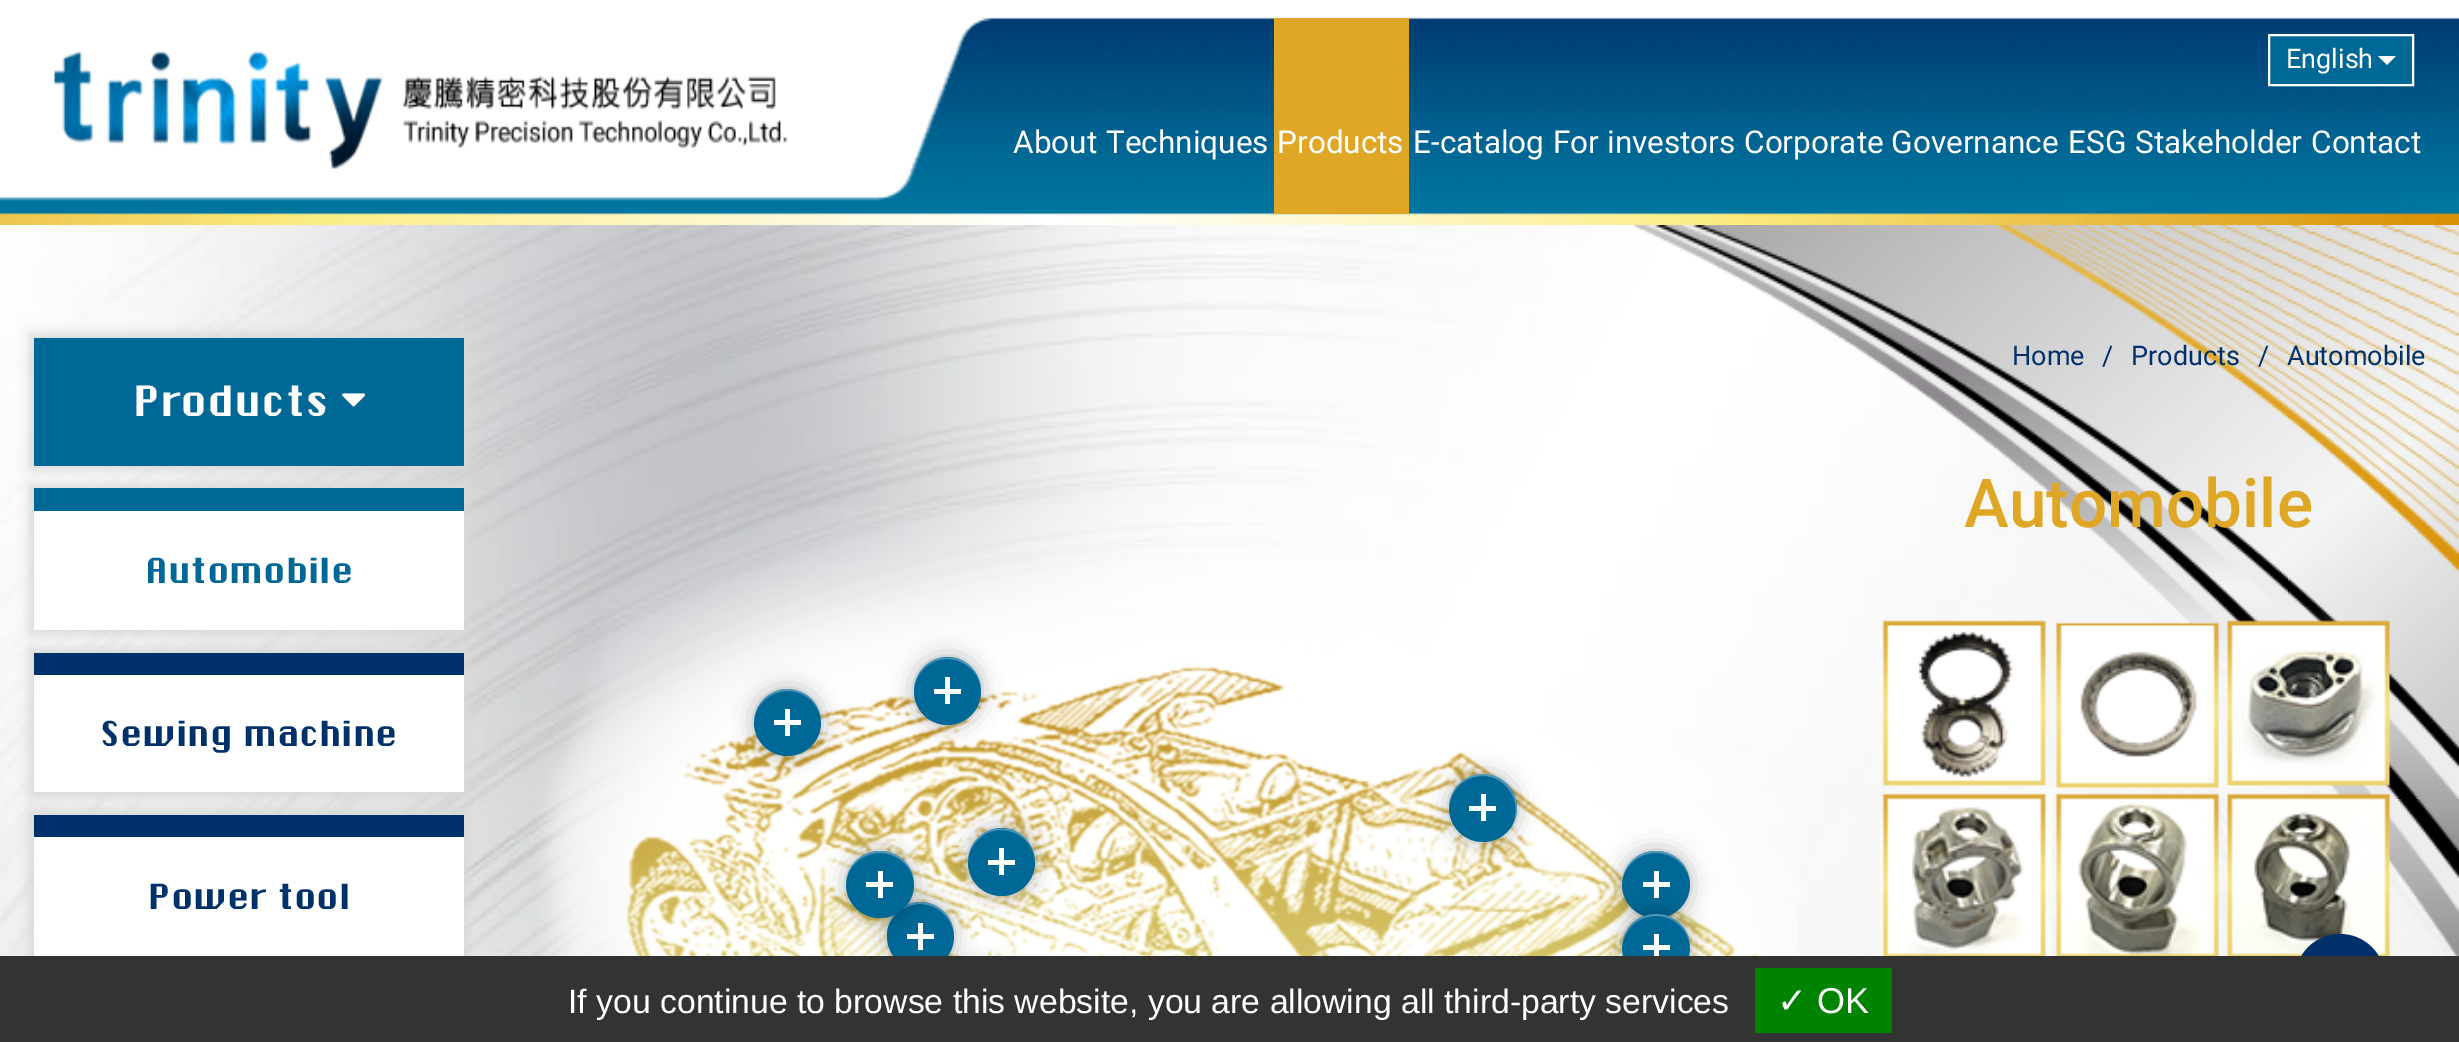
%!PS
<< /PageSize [2459 1042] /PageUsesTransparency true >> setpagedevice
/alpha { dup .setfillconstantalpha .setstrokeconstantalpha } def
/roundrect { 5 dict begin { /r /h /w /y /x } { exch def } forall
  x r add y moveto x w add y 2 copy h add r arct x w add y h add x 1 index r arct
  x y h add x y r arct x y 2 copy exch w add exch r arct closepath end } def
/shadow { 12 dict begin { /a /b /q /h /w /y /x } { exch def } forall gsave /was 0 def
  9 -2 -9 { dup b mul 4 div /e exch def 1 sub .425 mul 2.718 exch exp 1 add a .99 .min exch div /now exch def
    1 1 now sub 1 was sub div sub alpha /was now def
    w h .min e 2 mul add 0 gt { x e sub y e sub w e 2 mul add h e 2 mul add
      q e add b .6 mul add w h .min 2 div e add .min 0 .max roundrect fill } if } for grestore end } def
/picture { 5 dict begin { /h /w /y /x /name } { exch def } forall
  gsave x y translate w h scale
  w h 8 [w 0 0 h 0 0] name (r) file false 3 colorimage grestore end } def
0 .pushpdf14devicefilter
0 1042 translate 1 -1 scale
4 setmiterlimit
1 setgray
0 0 2459 1042 rectfill
(img1.rgb) 0 17 2459 208 picture
(img2.rgb) 54 51 734 118 picture
0 0.408 0.588 setrgbcolor
newpath 2269 35 moveto 2413 35 lineto 2413 85 lineto 2269 85 lineto closepath gsave fill grestore
1 setgray
2 setlinewidth
stroke
/Roboto-Regular [27 0 0 -27 0 0] selectfont
2286 68 moveto (English) show
newpath 2378 56 moveto 2396 56 lineto 2387 65 lineto closepath fill
/Roboto-Regular [31.5 0 0 -31.5 0 0] selectfont
1013 153 moveto (About) show
1106 153 moveto (Techniques) show
0.878 0.655 0.153 setrgbcolor
1274 18 135 196 rectfill
1 setgray
1277 153 moveto (Products) show
1413 153 moveto (E-catalog) show
1553 153 moveto (For investors) show
1744 153 moveto (Corporate Governance) show
2068 153 moveto (ESG) show
2135 153 moveto (Stakeholder) show
2311 153 moveto (Contact) show
(img3.rgb) 0 225 2459 731 picture
(img4.rgb) 1633 225 826 731 picture
0.851 setgray
29 333 439 137 0 5.5 1 shadow
0 0.408 0.588 setrgbcolor
34 338 430 128 rectfill
/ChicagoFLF-Medium [40.5 0 0 -40.5 0 0] selectfont
1 setgray
133 416 moveto (Products) show
(img5.rgb) 342 393 24 14 picture
0.851 setgray
29 484 439 151 0 5.5 1 shadow
1 setgray
34 511 430 119 rectfill
0 0.408 0.588 setrgbcolor
34 488 430 23 rectfill
/ChicagoFLF-Medium [33.75 0 0 -33.75 0 0] selectfont
145 583 moveto (Automobile) show
0.851 setgray
29 648 439 149 0 5.5 1 shadow
1 setgray
34 675 430 117 rectfill
0 0.192 0.416 setrgbcolor
34 653 430 22 rectfill
100 746 moveto (Sewing machine) show
0.851 setgray
29 810 439 151 0 5.5 1 shadow
1 setgray
34 837 430 119 rectfill
0 0.192 0.416 setrgbcolor
34 815 430 22 rectfill
148 909 moveto (Power tool) show
/Roboto-Regular [27 0 0 -27 0 0] selectfont
2012 365 moveto (Home) show
2102 365 moveto (/) show
2131 365 moveto (Products) show
2258 365 moveto (/) show
2287 365 moveto (Automobile) show
(img6.rgb) 537 505 1261 451 picture
0 setgray
754 689 67 67 33.5 11 0.3 shadow
0 0.408 0.588 setrgbcolor
newpath 787.5 722.5 33.5 0 360 arc closepath fill
0.3 alpha
1 setgray
newpath 788 691 moveto 806 691 821 706 821 723 curveto 821 716 819 709 815 704 curveto 797 676 753 690 754 723 curveto 754 706 769 691 788 691 curveto closepath fill
1 alpha
785 709 5 27 rectfill
774 720 27 5 rectfill
0 setgray
914 657 67 68 33.5 11 0.3 shadow
0 0.408 0.588 setrgbcolor
914 657 67 68 33.5 roundrect fill
0.3 alpha
1 setgray
newpath 947 659 moveto 966 659 981 674 981 692 curveto 982 646 913 646 914 692 curveto 914 674 929 659 947 659 curveto closepath fill
1 alpha
945 677 5 27 rectfill
934 689 27 5 rectfill
0 setgray
968 828 67 68 33.5 11 0.3 shadow
0 0.408 0.588 setrgbcolor
968 828 67 68 33.5 roundrect fill
0 setgray
887 902 67 68 33.5 11 0.3 shadow
941 965 67 68 33.5 11 0.3 shadow
0 0.408 0.588 setrgbcolor
887 902 67 68 33.5 roundrect fill
0.3 alpha
1 setgray
newpath 920 904 moveto 939 904 954 920 954 937 curveto 955 897 899 889 888 926 curveto 893 914 906 904 920 904 curveto closepath fill
1 alpha
918 923 5 27 rectfill
907 934 27 5 rectfill
0 setgray
846 851 68 67 33.5 11 0.3 shadow
0 0.408 0.588 setrgbcolor
846 851 68 67 33.5 roundrect fill
0.3 alpha
1 setgray
newpath 880 853 moveto 898 853 914 868 914 885 curveto 914 878 912 872 908 866 curveto 890 838 845 852 846 885 curveto 846 868 861 853 880 853 curveto closepath fill
1 alpha
878 871 5 27 rectfill
866 882 27 5 rectfill
0.3 alpha
newpath 1001 830 moveto 1020 830 1035 845 1035 863 curveto 1036 817 967 817 968 863 curveto 968 845 983 830 1001 830 curveto closepath fill
1 alpha
999 848 5 27 rectfill
988 860 27 5 rectfill
0 setgray
1449 774 68 68 34 11 0.3 shadow
0 0.408 0.588 setrgbcolor
newpath 1483 808 34 0 360 arc closepath fill
0.3 alpha
1 setgray
newpath 1483 776 moveto 1507 776 1522 802 1513 823 curveto 1530 790 1487 756 1459 784 curveto 1452 791 1449 800 1449 809 curveto 1450 790 1464 776 1483 776 curveto closepath fill
1 alpha
1481 794 5 27 rectfill
1469 806 27 5 rectfill
0 setgray
1622 851 68 67 33.5 11 0.3 shadow
0 0.408 0.588 setrgbcolor
1622 851 68 67 33.5 roundrect fill
0.3 alpha
1 setgray
newpath 1656 853 moveto 1675 853 1690 868 1690 885 curveto 1690 878 1688 871 1684 866 curveto 1666 838 1621 852 1622 885 curveto 1622 868 1637 853 1656 853 curveto closepath fill
1 alpha
1654 871 5 27 rectfill
1643 882 27 5 rectfill
0 setgray
1622 914 68 67 33.5 11 0.3 shadow
0 0.408 0.588 setrgbcolor
1622 914 68 67 33.5 roundrect fill
0.3 alpha
1 setgray
newpath 1656 916 moveto 1675 916 1689 930 1690 949 curveto 1690 942 1688 935 1684 929 curveto 1666 901 1621 915 1622 949 curveto 1623 930 1637 916 1656 916 curveto closepath fill
1 alpha
1654 934 5 27 rectfill
1643 945 27 5 rectfill
/Roboto-Medium [67.5 0 0 -67.5 0 0] selectfont
0.878 0.655 0.153 setrgbcolor
1964 527 moveto (Automobile) show
(img7.rgb) 1880 606 513 350 picture
0 0.192 0.416 setrgbcolor
newpath 2340 979 45 0 360 arc closepath fill
0.2 setgray
0 956 2459 86 rectfill
/LiberationSans-Regular [33.75 0 0 -33.75 0 0] selectfont
1 setgray
568 1013 moveto (If you continue to browse this website, you are allowing all third-party services) show
0 0.514 0 setrgbcolor
1755 968 137 65 rectfill
/DejaVuSans-Regular [36 0 0 -36 0 0] selectfont
1 setgray
1777 1013 moveto (✓) show
/LiberationSans-Regular [36 0 0 -36 0 0] selectfont
1817 1013 moveto (OK) show
.poppdf14devicefilter showpage
